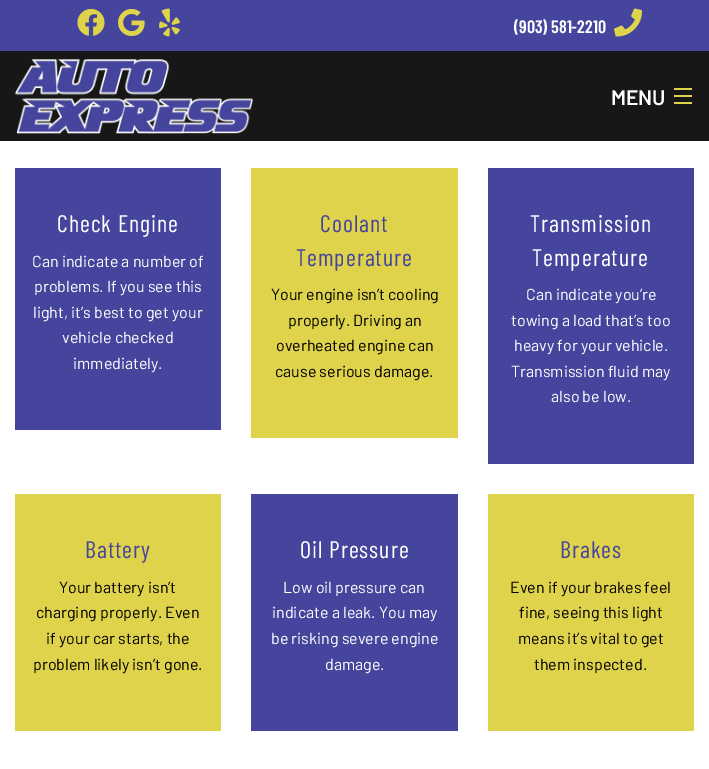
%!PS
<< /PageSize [709 769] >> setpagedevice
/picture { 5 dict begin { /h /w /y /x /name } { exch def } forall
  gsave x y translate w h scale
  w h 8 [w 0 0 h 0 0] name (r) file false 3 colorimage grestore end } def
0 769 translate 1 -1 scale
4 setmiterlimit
1 setgray
0 0 709 769 rectfill
0.094 0.09 0.09 setrgbcolor
0 51 709 90 rectfill
0.271 0.271 0.616 setrgbcolor
0 0 709 51 rectfill
(img1.rgb) 77 9 28 27 picture
(img2.rgb) 118 8 27 29 picture
(img3.rgb) 159 8 21 29 picture
/BarlowCondensed-SemiBold [18 0 0 -18 0 0] selectfont
1 setgray
514 33 moveto (\(903\) 581-2210) show
(img4.rgb) 614 8 29 29 picture
(img5.rgb) 15 59 238 75 picture
/Barlow-SemiBold [21 0 0 -21 0 0] selectfont
611 105 moveto (MENU) show
0.878 0.827 0.298 setrgbcolor
674 102 18 2 rectfill
674 95 18 2 rectfill
674 88 18 2 rectfill
0.271 0.271 0.616 setrgbcolor
15 168 206 262 rectfill
/BarlowCondensed-Regular [24 0 0 -24 0 0] selectfont
1 setgray
57 232 moveto 1 0 (Check Engine) ashow
/Barlow-Regular [16 0 0 -16 0 0] selectfont
32 267 moveto (Can indicate a number of) show
34 292 moveto (problems. If you see this) show
33 318 moveto (light, it’s best to get your) show
62 343 moveto (vehicle checked) show
73 369 moveto (immediately.) show
0.878 0.827 0.298 setrgbcolor
251 168 207 270 rectfill
/BarlowCondensed-Regular [24 0 0 -24 0 0] selectfont
0.271 0.271 0.616 setrgbcolor
320 232 moveto 1 0 (Coolant) ashow
296 266 moveto 1 0 (Temperature) ashow
/Barlow-Regular [16 0 0 -16 0 0] selectfont
0.004 setgray
271 300 moveto (Your engine isn’t cooling) show
288 326 moveto (properly. Driving an) show
276 351 moveto (overheated engine can) show
275 377 moveto (cause serious damage.) show
0.271 0.271 0.616 setrgbcolor
488 168 206 296 rectfill
/BarlowCondensed-Regular [24 0 0 -24 0 0] selectfont
1 setgray
530 232 moveto 1 0 (Transmission) ashow
532 266 moveto 1 0 (Temperature) ashow
/Barlow-Regular [16 0 0 -16 0 0] selectfont
526 300 moveto (Can indicate you’re) show
511 326 moveto (towing a load that’s too) show
514 351 moveto (heavy for your vehicle.) show
511 377 moveto (Transmission fluid may) show
551 402 moveto (also be low.) show
0.878 0.827 0.298 setrgbcolor
15 494 206 237 rectfill
/BarlowCondensed-Regular [24 0 0 -24 0 0] selectfont
0.271 0.271 0.616 setrgbcolor
85 558 moveto 1 0 (Battery) ashow
/Barlow-Regular [16 0 0 -16 0 0] selectfont
0.004 setgray
59 593 moveto (Your battery isn’t) show
36 618 moveto (charging properly. Even) show
46 644 moveto (if your car starts, the) show
33 670 moveto (problem likely isn’t gone.) show
0.271 0.271 0.616 setrgbcolor
251 494 207 237 rectfill
/BarlowCondensed-Regular [24 0 0 -24 0 0] selectfont
1 setgray
300 558 moveto 1 0 (Oil Pressure) ashow
/Barlow-Regular [16 0 0 -16 0 0] selectfont
283 593 moveto (Low oil pressure can) show
272 618 moveto (indicate a leak. You may) show
271 644 moveto (be risking severe engine) show
325 670 moveto (damage.) show
0.878 0.827 0.298 setrgbcolor
488 494 206 237 rectfill
/BarlowCondensed-Regular [24 0 0 -24 0 0] selectfont
0.271 0.271 0.616 setrgbcolor
560 558 moveto 1 0 (Brakes) ashow
/Barlow-Regular [16 0 0 -16 0 0] selectfont
0.004 setgray
510 593 moveto (Even if your brakes feel) show
519 618 moveto (fine, seeing this light) show
518 644 moveto (means it’s vital to get) show
534 670 moveto (them inspected.) show
showpage
